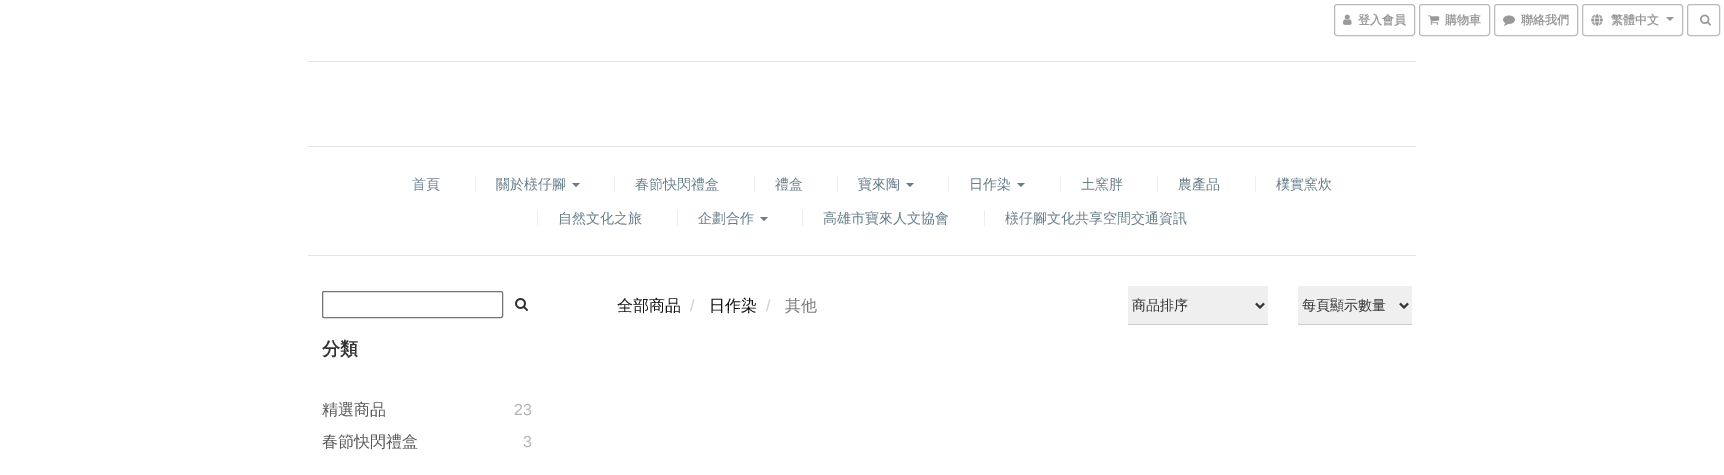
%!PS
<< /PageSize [1724 475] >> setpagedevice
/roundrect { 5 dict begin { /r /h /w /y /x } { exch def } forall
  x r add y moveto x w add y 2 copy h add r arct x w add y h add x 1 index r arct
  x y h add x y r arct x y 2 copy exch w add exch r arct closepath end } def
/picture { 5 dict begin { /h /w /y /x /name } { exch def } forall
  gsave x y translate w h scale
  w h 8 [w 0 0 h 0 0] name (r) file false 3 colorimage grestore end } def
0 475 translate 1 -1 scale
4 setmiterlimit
1 setgray
0 0 1724 475 rectfill
0.733 setgray
1334.5 4.5 80 31 2.5 roundrect stroke
(img1.rgb) 1343 14 9 11 picture
/WenQuanYiZenHei-Bold [12 0 0 -12 0 0] selectfont
0.6 setgray
1358 24 moveto (登入會員) show
0.733 setgray
1419.5 4.5 70 31 2.5 roundrect stroke
(img2.rgb) 1428 15 12 10 picture
0.6 setgray
1445 24 moveto (購物車) show
0.733 setgray
1494.5 4.5 83 31 2.5 roundrect stroke
(img3.rgb) 1503 15 12 11 picture
0.6 setgray
1521 24 moveto (聯絡我們) show
0.733 setgray
1582.5 4.5 100 31 2.5 roundrect stroke
(img4.rgb) 1591 14 12 12 picture
0.6 setgray
1611 24 moveto (繁體中文) show
newpath 1666 17 moveto 1674 17 lineto 1670 21 lineto closepath fill
0.733 setgray
1687.5 4.5 32 31 2.5 roundrect stroke
(img5.rgb) 1700 14 11 12 picture
0.886 setgray
308 61 1108 1 rectfill
308 146 1108 1 rectfill
308 255 1108 1 rectfill
/WenQuanYiZenHei-Medium [14 0 0 -14 0 0] selectfont
0.404 0.494 0.529 setrgbcolor
412 189 moveto (首頁) show
0.933 setgray
475 176 1 16 rectfill
0.404 0.494 0.529 setrgbcolor
496 189 moveto (關於檨仔腳) show
newpath 572 183 moveto 580 183 lineto 576 187 lineto closepath fill
635 189 moveto (春節快閃禮盒) show
0.933 setgray
614 176 1 16 rectfill
0.404 0.494 0.529 setrgbcolor
775 189 moveto (禮盒) show
0.933 setgray
754 176 1 16 rectfill
837 176 1 16 rectfill
0.404 0.494 0.529 setrgbcolor
858 189 moveto (寶來陶) show
newpath 906 183 moveto 914 183 lineto 910 187 lineto closepath fill
0.933 setgray
948 176 1 16 rectfill
0.404 0.494 0.529 setrgbcolor
969 189 moveto (日作染) show
newpath 1017 183 moveto 1025 183 lineto 1021 187 lineto closepath fill
1081 189 moveto (土窯胖) show
0.933 setgray
1060 176 1 16 rectfill
0.404 0.494 0.529 setrgbcolor
1178 189 moveto (農產品) show
0.933 setgray
1157 176 1 16 rectfill
0.404 0.494 0.529 setrgbcolor
1276 189 moveto (樸實窯炊) show
0.933 setgray
1255 176 1 16 rectfill
0.404 0.494 0.529 setrgbcolor
558 223 moveto (自然文化之旅) show
0.933 setgray
537 210 1 16 rectfill
677 210 1 16 rectfill
0.404 0.494 0.529 setrgbcolor
698 223 moveto (企劃合作) show
newpath 760 217 moveto 768 217 lineto 764 221 lineto closepath fill
823 223 moveto (高雄市寶來人文協會) show
0.933 setgray
802 210 1 16 rectfill
0.404 0.494 0.529 setrgbcolor
1005 223 moveto (檨仔腳文化共享空間交通資訊) show
0.933 setgray
984 210 1 16 rectfill
/WenQuanYiZenHei-Medium [16 0 0 -16 0 0] selectfont
0.067 setgray
617 311 moveto (全部商品) show
/LiberationSans-Regular [16 0 0 -16 0 0] selectfont
0.8 setgray
690 311 moveto (/) show
/WenQuanYiZenHei-Medium [16 0 0 -16 0 0] selectfont
0.067 setgray
709 311 moveto (日作染) show
/LiberationSans-Regular [16 0 0 -16 0 0] selectfont
0.8 setgray
766 311 moveto (/) show
/WenQuanYiZenHei-Medium [16 0 0 -16 0 0] selectfont
0.467 setgray
785 311 moveto (其他) show
0.937 setgray
1128 286 140 38 rectfill
0.8 setgray
1128 324 140 1 rectfill
0.2 setgray
2 setlinewidth
newpath 1256 303.5 moveto 1260 307.5 lineto 1264 303.5 lineto stroke
/WenQuanYiZenHei-Medium [14 0 0 -14 0 0] selectfont
1132 310 moveto (商品排序) show
0.937 setgray
1298 286 114 38 rectfill
0.8 setgray
1298 324 114 1 rectfill
0.2 setgray
newpath 1400 303.5 moveto 1404 307.5 lineto 1408 303.5 lineto stroke
1302 310 moveto (每頁顯示數量) show
0.463 setgray
1 setlinewidth
322.5 291.5 180 26 1.5 roundrect stroke
(img6.rgb) 515 298 13 13 picture
/WenQuanYiZenHei-Bold [18 0 0 -18 0 0] selectfont
0.2 setgray
322 355 moveto (分類) show
/WenQuanYiZenHei-Medium [16 0 0 -16 0 0] selectfont
0.345 setgray
322 415 moveto (精選商品) show
/LiberationSans-Regular [16 0 0 -16 0 0] selectfont
0.702 setgray
514 415 moveto (23) show
/WenQuanYiZenHei-Medium [16 0 0 -16 0 0] selectfont
0.345 setgray
322 447 moveto (春節快閃禮盒) show
/LiberationSans-Regular [16 0 0 -16 0 0] selectfont
0.702 setgray
523 447 moveto (3) show
showpage
